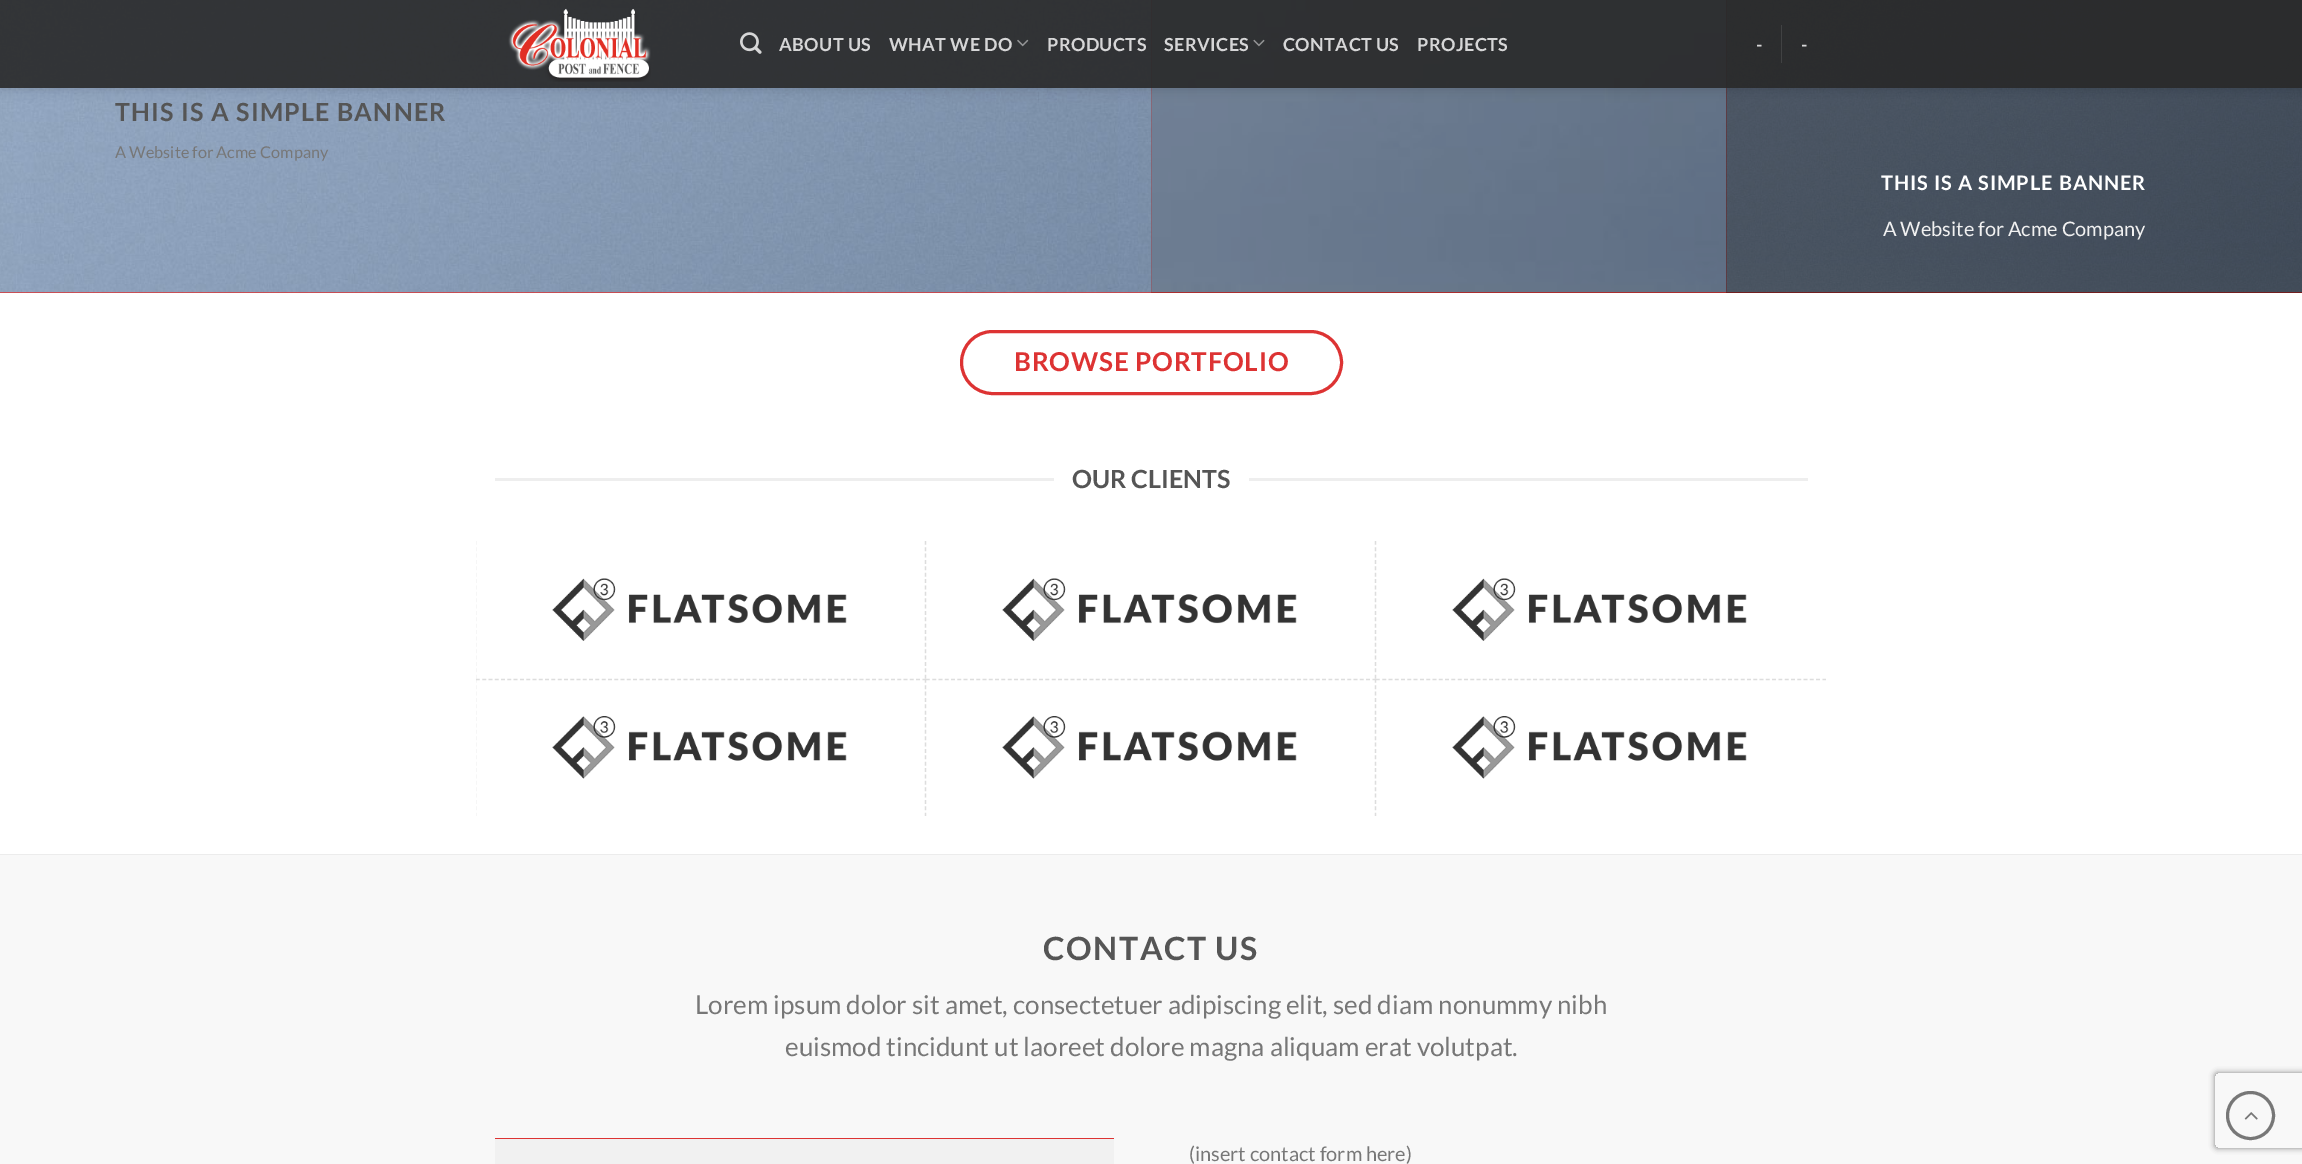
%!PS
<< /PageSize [2302 1164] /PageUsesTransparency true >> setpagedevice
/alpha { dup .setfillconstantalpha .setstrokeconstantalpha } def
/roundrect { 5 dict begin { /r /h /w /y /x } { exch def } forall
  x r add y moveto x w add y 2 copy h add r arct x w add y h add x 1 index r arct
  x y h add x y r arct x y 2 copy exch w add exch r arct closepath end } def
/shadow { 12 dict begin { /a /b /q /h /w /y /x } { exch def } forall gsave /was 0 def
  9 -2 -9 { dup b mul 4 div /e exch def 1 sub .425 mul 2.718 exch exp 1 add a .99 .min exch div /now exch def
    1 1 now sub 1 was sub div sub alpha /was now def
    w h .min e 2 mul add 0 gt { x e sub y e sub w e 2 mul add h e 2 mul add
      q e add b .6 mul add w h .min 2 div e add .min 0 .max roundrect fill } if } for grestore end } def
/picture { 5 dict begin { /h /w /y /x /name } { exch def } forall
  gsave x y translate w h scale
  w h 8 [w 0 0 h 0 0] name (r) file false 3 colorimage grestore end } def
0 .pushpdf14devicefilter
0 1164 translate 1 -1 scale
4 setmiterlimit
1 setgray
0 0 2302 1164 rectfill
0.867 0.2 0.2 setrgbcolor
0 292 1151 1 rectfill
0.686 0.157 0.157 setrgbcolor
1151 0 575 293 rectfill
(img6.rgb) 1151 0 575 293 picture
(img5.rgb) 0 0 1152 293 picture
0.867 0.2 0.2 setrgbcolor
1726 0 576 293 rectfill
(img7.rgb) 1726 0 576 293 picture
0.47 alpha
0 setgray
1726 0 576 293 rectfill
gsave
newpath 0 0 moveto 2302 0 lineto 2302 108 lineto 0 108 lineto closepath 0 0 moveto 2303 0 lineto 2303 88 lineto 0 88 lineto closepath eoclip newpath
1 alpha
1 1 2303 88 0 6 0.15 shadow
grestore
0.9 alpha
0.157 setgray
0 0 2302 88 rectfill
1 alpha
(img1.rgb) 508 8 143 74 picture
(img2.rgb) 740 32 22 22 picture
/Lato-Bold [18 0 0 -18 0 0] selectfont
0.839 0.839 0.843 setrgbcolor
779 51 moveto 0.4 0 (ABOUT US) ashow
889 51 moveto 0.4 0 (WHAT WE DO) ashow
(img3.rgb) 1017 39 12 8 picture
1047 51 moveto 0.4 0 (PRODUCTS) ashow
1164 51 moveto 0.4 0 (SERVICES) ashow
(img4.rgb) 1253 39 12 8 picture
1283 51 moveto 0.4 0 (CONTACT US) ashow
1417 51 moveto 0.4 0 (PROJECTS) ashow
1756 51 moveto 0.4 0 (-) ashow
0.255 0.259 0.263 setrgbcolor
1781 25 1 38 rectfill
0.839 0.839 0.843 setrgbcolor
1801 51 moveto 0.4 0 (-) ashow
/Lato-Bold [25 0 0 -25 0 0] selectfont
0.333 setgray
115 121 moveto 1.25 0 (THIS IS A SIMPLE BANNER) ashow
/Lato-Regular [16.25 0 0 -16.25 0 0] selectfont
0.467 setgray
115 158 moveto (A Website for Acme Company) show
/Lato-Bold [20 0 0 -20 0 0] selectfont
1 setgray
1881 190 moveto 1 0 (THIS IS A SIMPLE BANNER) ashow
/Lato-Regular [20 0 0 -20 0 0] selectfont
0.945 setgray
1883 236 moveto (A Website for Acme Company) show
0.867 0.2 0.2 setrgbcolor
3 setlinewidth
961.5 331.5 380 62 31 roundrect stroke
/Lato-Bold [26 0 0 -26 0 0] selectfont
1014 371 moveto 0.75 0 (BROWSE PORTFOLIO) ashow
0.933 setgray
495 478 559 3 rectfill
/Lato-Bold [25 0 0 -25 0 0] selectfont
0.333 setgray
1072 488 moveto (OUR CLIENTS) show
0.933 setgray
1249 478 559 3 rectfill
gsave
476 541 1350 275 rectclip
0.867 setgray
1.2 setlinewidth
[3.75 2.62] 0 setdash
newpath 475.5 541 moveto 475.5 679 lineto stroke
grestore
(img8.rgb) 552 578 295 63 picture
0.867 setgray
1.2 setlinewidth
[3.75 2.54] 0 setdash
newpath 476 679.5 moveto 926 679.5 lineto stroke
[3.75 2.62] 0 setdash
newpath 925.5 541 moveto 925.5 679 lineto stroke
(img8.rgb) 1002 578 295 63 picture
[3.75 2.54] 0 setdash
newpath 926 679.5 moveto 1376 679.5 lineto stroke
[3.75 2.62] 0 setdash
newpath 1375.5 541 moveto 1375.5 679 lineto stroke
(img8.rgb) 1452 578 295 63 picture
[3.75 2.54] 0 setdash
newpath 1376 679.5 moveto 1826 679.5 lineto stroke
gsave
476 541 1350 275 rectclip
[3.75 2.62] 0 setdash
newpath 475.5 679 moveto 475.5 816 lineto stroke
grestore
(img9.rgb) 552 716 295 63 picture
[3.75 2.62] 0 setdash
newpath 925.5 679 moveto 925.5 816 lineto stroke
(img9.rgb) 1002 716 295 63 picture
newpath 1375.5 679 moveto 1375.5 816 lineto stroke
(img9.rgb) 1452 716 295 63 picture
0.925 setgray
0 854 2302 1 rectfill
0.973 setgray
0 855 2302 309 rectfill
/Lato-Bold [32 0 0 -32 0 0] selectfont
0.333 setgray
1043 960 moveto 1.6 0 (CONTACT US) ashow
/Lato-Regular [26 0 0 -26 0 0] selectfont
0.467 setgray
695 1014 moveto (Lorem ipsum dolor sit amet, consectetuer adipiscing elit, sed diam nonummy nibh) show
785 1056 moveto (euismod tincidunt ut laoreet dolore magna aliquam erat volutpat.) show
0.945 setgray
495 1139 619 25 rectfill
0.867 0.2 0.2 setrgbcolor
495 1138 619 1 rectfill
/Lato-Regular [20 0 0 -20 0 0] selectfont
0.467 setgray
1189 1161 moveto (\(insert contact form here\)) show
gsave
newpath 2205 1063 moveto 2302 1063 lineto 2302 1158 lineto 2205 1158 lineto closepath 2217.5 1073 moveto 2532.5 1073 lineto 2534 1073 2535 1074 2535 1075.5 curveto 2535 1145.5 lineto 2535 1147 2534 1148 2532.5 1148 curveto 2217.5 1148 lineto 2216 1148 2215 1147 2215 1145.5 curveto 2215 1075.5 lineto 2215 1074 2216 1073 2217.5 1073 curveto closepath eoclip newpath
0.502 setgray
2215 1073 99 75 2.5 3 1 shadow
grestore
3 setlinewidth
[] 0 setdash
newpath 2250.5 1115.5 23 0 360 arc closepath stroke
(img10.rgb) 2244 1112 14 8 picture
.poppdf14devicefilter showpage
